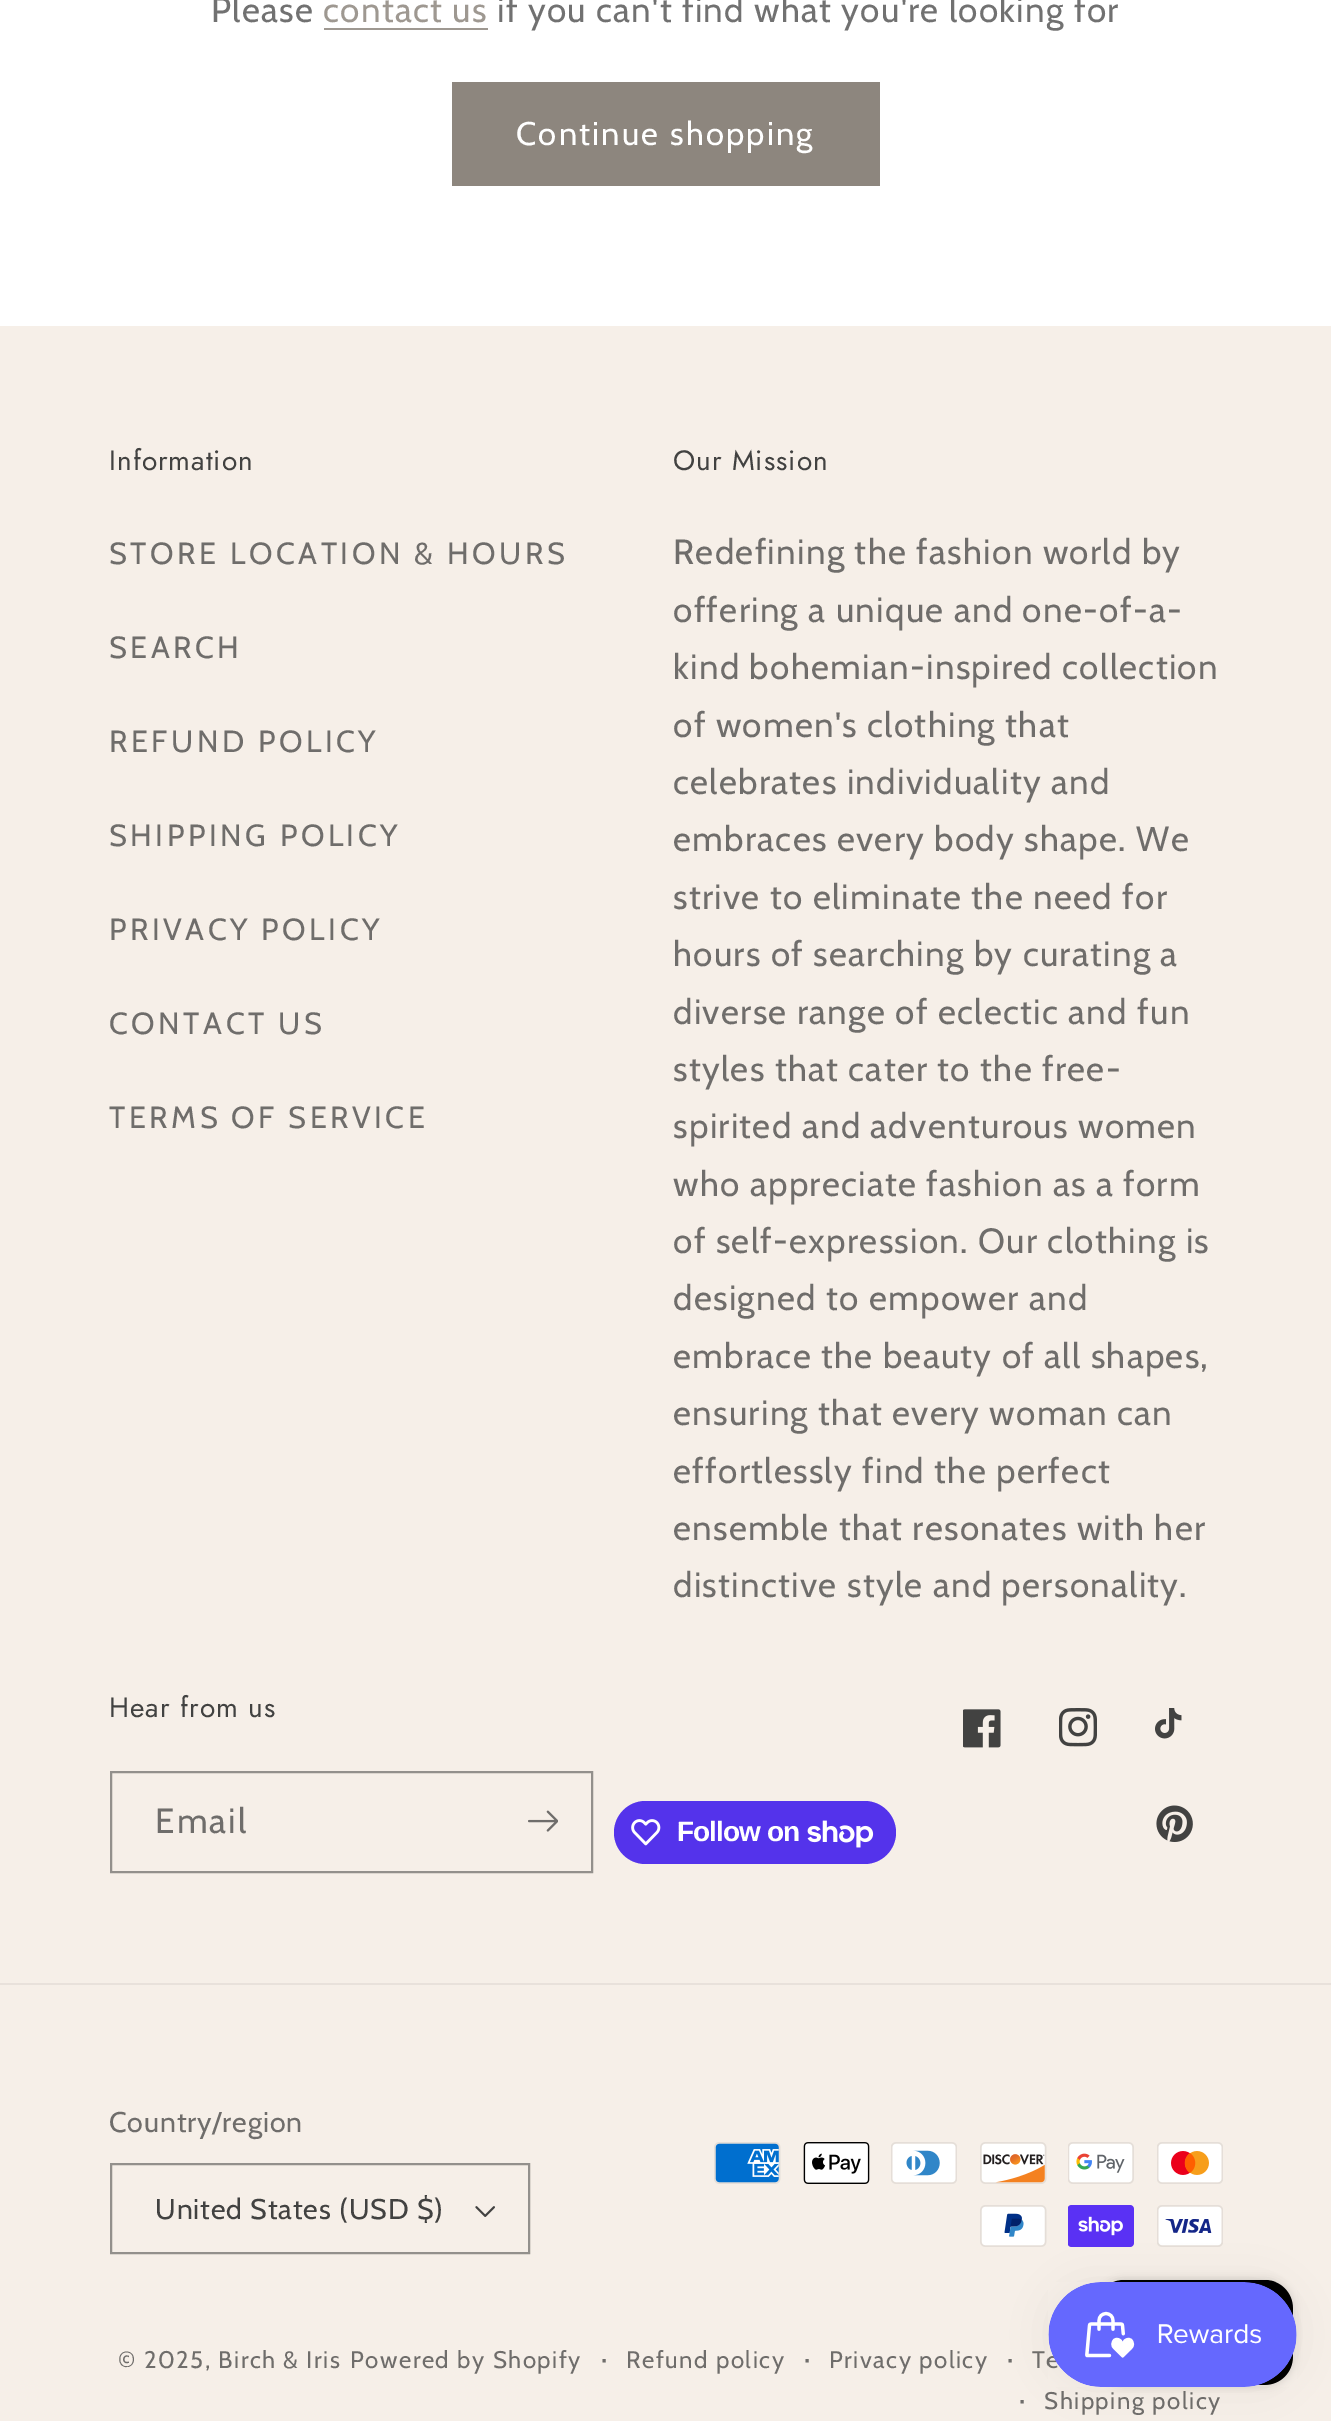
%!PS
<< /PageSize [1331 2421] /PageUsesTransparency true >> setpagedevice
/alpha { dup .setfillconstantalpha .setstrokeconstantalpha } def
/roundrect { 5 dict begin { /r /h /w /y /x } { exch def } forall
  x r add y moveto x w add y 2 copy h add r arct x w add y h add x 1 index r arct
  x y h add x y r arct x y 2 copy exch w add exch r arct closepath end } def
/shadow { 12 dict begin { /a /b /q /h /w /y /x } { exch def } forall gsave /was 0 def
  9 -2 -9 { dup b mul 4 div /e exch def 1 sub .425 mul 2.718 exch exp 1 add a .99 .min exch div /now exch def
    1 1 now sub 1 was sub div sub alpha /was now def
    w h .min e 2 mul add 0 gt { x e sub y e sub w e 2 mul add h e 2 mul add
      q e add b .6 mul add w h .min 2 div e add .min 0 .max roundrect fill } if } for grestore end } def
/picture { 5 dict begin { /h /w /y /x /name } { exch def } forall
  gsave x y translate w h scale
  w h 8 [w 0 0 h 0 0] name (r) file false 3 colorimage grestore end } def
0 .pushpdf14devicefilter
0 2421 translate 1 -1 scale
4 setmiterlimit
1 setgray
0 0 1331 2421 rectfill
/Cabin-Regular [35 0 0 -35 0 0] selectfont
0.443 setgray
211 22 moveto 1.3 0 (Please) ashow
0.62 0.596 0.569 setrgbcolor
323 22 moveto 1.3 0 (contact us) ashow
324 28 164 2 rectfill
0.443 setgray
497 22 moveto 1.3 0 (if you can't find what you're looking for) ashow
0.553 0.525 0.494 setrgbcolor
452 82 428 104 rectfill
/Cabin-Regular [32.75 0 0 -32.75 0 0] selectfont
1 setgray
516 145 moveto 2.2 0 (Continue shopping) ashow
0.965 0.937 0.91 setrgbcolor
0 326 1331 2095 rectfill
/Jost-Regular [28 0 0 -28 0 0] selectfont
0.259 0.259 0.255 setrgbcolor
109 470 moveto 1 0 (Information) ashow
/Cabin-Regular [30.6 0 0 -30.6 0 0] selectfont
0.435 0.427 0.42 setrgbcolor
109 564 moveto 3.5 0 (STORE LOCATION & HOURS) ashow
109 658 moveto 3.5 0 (SEARCH) ashow
109 752 moveto 3.5 0 (REFUND POLICY) ashow
109 846 moveto 3.5 0 (SHIPPING POLICY) ashow
109 940 moveto 3.5 0 (PRIVACY POLICY) ashow
109 1034 moveto 3.5 0 (CONTACT US) ashow
109 1128 moveto 3.5 0 (TERMS OF SERVICE) ashow
/Jost-Regular [28 0 0 -28 0 0] selectfont
0.259 0.259 0.255 setrgbcolor
673 470 moveto 1 0 (Our Mission) ashow
/Cabin-Regular [35 0 0 -35 0 0] selectfont
0.435 0.427 0.42 setrgbcolor
673 564 moveto 1.3 0 (Redefining the fashion world by) ashow
673 622 moveto 1.3 0 (offering a unique and one-of-a-) ashow
673 679 moveto 1.3 0 (kind bohemian-inspired collection) ashow
673 737 moveto 1.3 0 (of women's clothing that) ashow
673 794 moveto 1.3 0 (celebrates individuality and) ashow
673 851 moveto 1.3 0 (embraces every body shape. We) ashow
673 909 moveto 1.3 0 (strive to eliminate the need for) ashow
673 966 moveto 1.3 0 (hours of searching by curating a) ashow
673 1024 moveto 1.3 0 (diverse range of eclectic and fun) ashow
673 1081 moveto 1.3 0 (styles that cater to the free-) ashow
673 1138 moveto 1.3 0 (spirited and adventurous women) ashow
673 1196 moveto 1.3 0 (who appreciate fashion as a form) ashow
673 1253 moveto 1.3 0 (of self-expression. Our clothing is) ashow
673 1310 moveto 1.3 0 (designed to empower and) ashow
673 1368 moveto 1.3 0 (embrace the beauty of all shapes,) ashow
673 1425 moveto 1.3 0 (ensuring that every woman can) ashow
673 1483 moveto 1.3 0 (effortlessly find the perfect) ashow
673 1540 moveto 1.3 0 (ensemble that resonates with her) ashow
673 1597 moveto 1.3 0 (distinctive style and personality.) ashow
/Jost-Regular [28 0 0 -28 0 0] selectfont
0.259 0.259 0.255 setrgbcolor
109 1717 moveto 1 0 (Hear from us) ashow
0.576 0.565 0.549 setrgbcolor
2 setlinewidth
111 1772 481 100 rectstroke
/Cabin-Regular [35 0 0 -35 0 0] selectfont
0.435 0.427 0.42 setrgbcolor
155 1833 moveto 2.2 0 (Email) ashow
(img1.rgb) 528 1810 30 22 picture
0.329 0.2 0.922 setrgbcolor
614 1801 282 63 31.5 roundrect fill
(img2.rgb) 631 1819 30 27 picture
/LiberationSans-Bold [28 0 0 -28 0 0] selectfont
1 setgray
677 1841 moveto -0.9 0 (Follow on) ashow
(img3.rgb) 807 1820 67 28 picture
(img4.rgb) 963 1709 38 39 picture
(img5.rgb) 1059 1708 38 39 picture
(img6.rgb) 1155 1708 27 31 picture
(img7.rgb) 1156 1805 37 37 picture
0.91 0.882 0.859 setrgbcolor
0 1983 1331 2 rectfill
/Cabin-Regular [28.5 0 0 -28.5 0 0] selectfont
0.435 0.427 0.42 setrgbcolor
109 2132 moveto 0.9 0 (Country/region) ashow
(img8.rgb) 475 2206 20 11 picture
0.576 0.565 0.549 setrgbcolor
111 2164 418 89 rectstroke
0.259 0.259 0.255 setrgbcolor
155 2219 moveto 0.9 0 (United States \(USD $\)) ashow
(img9.rgb) 714 2142 67 42 picture
(img10.rgb) 803 2142 67 42 picture
(img11.rgb) 891 2142 66 42 picture
(img12.rgb) 980 2142 67 42 picture
(img13.rgb) 1068 2142 66 42 picture
(img14.rgb) 1157 2142 66 42 picture
(img15.rgb) 980 2205 67 42 picture
(img16.rgb) 1068 2205 66 42 picture
(img17.rgb) 1157 2205 66 42 picture
/Cabin-Regular [24 0 0 -24 0 0] selectfont
0.435 0.427 0.42 setrgbcolor
118 2368 moveto 1.5 0 (© 2025, Birch & Iris) ashow
350 2368 moveto 1.5 0 (Powered by Shopify) ashow
/Cabin-Regular [26 0 0 -26 0 0] selectfont
601 2368 moveto 1.5 0 (·) ashow
/Cabin-Regular [24 0 0 -24 0 0] selectfont
626 2368 moveto 1.5 0 (Refund policy) ashow
/Cabin-Regular [26 0 0 -26 0 0] selectfont
804 2368 moveto 1.5 0 (·) ashow
/Cabin-Regular [24 0 0 -24 0 0] selectfont
829 2368 moveto 1.5 0 (Privacy policy) ashow
/Cabin-Regular [26 0 0 -26 0 0] selectfont
1007 2368 moveto 1.5 0 (·) ashow
/Cabin-Regular [24 0 0 -24 0 0] selectfont
1032 2368 moveto 1.5 0 (Te) ashow
/Cabin-Regular [26 0 0 -26 0 0] selectfont
1019 2409 moveto 1.5 0 (·) ashow
/Cabin-Regular [24 0 0 -24 0 0] selectfont
1044 2409 moveto 1.5 0 (Shipping policy) ashow
0 setgray
1096 2280 197 105 28 4.5 0.15 shadow
1096 2280 197 105 28 roundrect fill
1048 2282 249 105 52.5 22 0.05 shadow
(img18.rgb) 1048 2282 249 105 picture
.poppdf14devicefilter showpage
